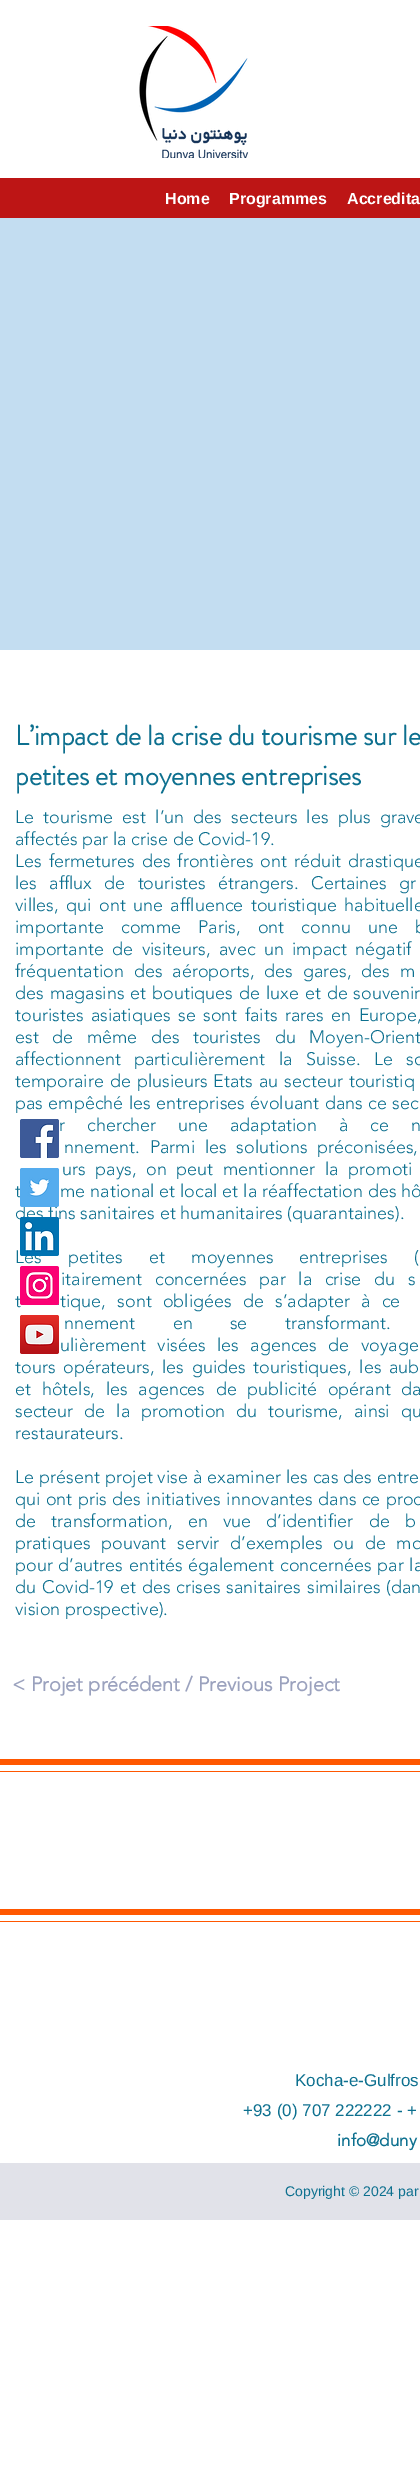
%!PS
<< /PageSize [420 2472] >> setpagedevice
/picture { 5 dict begin { /h /w /y /x /name } { exch def } forall
  gsave x y translate w h scale
  w h 8 [w 0 0 h 0 0] name (r) file false 3 colorimage grestore end } def
0 2472 translate 1 -1 scale
4 setmiterlimit
1 setgray
0 0 420 2472 rectfill
(img1.rgb) 139 26 110 132 picture
0.741 0.082 0.082 setrgbcolor
0 178 420 40 rectfill
/LiberationSans-Bold [16 0 0 -16 0 0] selectfont
1 setgray
165 204 moveto (Home) show
229 204 moveto (Programmes) show
347 204 moveto (Accredita) show
0.765 0.867 0.945 setrgbcolor
0 218 420 432 rectfill
/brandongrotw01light-Bold [28 0 0 -28 0 0] selectfont
0.051 0.439 0.561 setrgbcolor
15 745 moveto (L’impact de la crise du tourisme sur le) show
15 785 moveto (petites et moyennes entreprises) show
/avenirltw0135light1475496-Light [18 0 0 -18 0 0] selectfont
15 823 moveto 4.5 0 32 (Le tourisme est l’un des secteurs les plus grave) widthshow
15 845 moveto (affectés par la crise de Covid-19.) show
15 867 moveto 2.25 0 32 (Les fermetures des frontières ont réduit drastique) widthshow
15 889 moveto 7.5 0 32 (les afflux de touristes étrangers. Certaines gr) widthshow
15 911 moveto 2.75 0 32 (villes, qui ont une affluence touristique habituelle) widthshow
15 933 moveto 12.5 0 32 (importante comme Paris, ont connu une b) widthshow
15 955 moveto 3.75 0 32 (importante de visiteurs, avec un impact négatif) widthshow
15 977 moveto 5.25 0 32 (fréquentation des aéroports, des gares, des m) widthshow
15 999 moveto 1.25 0 32 (des magasins et boutiques de luxe et de souvenir) widthshow
15 1021 moveto 2.75 0 32 (touristes asiatiques se sont faits rares en Europe,) widthshow
15 1043 moveto 8.75 0 32 (est de même des touristes du Moyen-Orient) widthshow
15 1065 moveto 8.75 0 32 (affectionnent particulièrement la Suisse. Le so) widthshow
15 1087 moveto 1.25 0 32 (temporaire de plusieurs Etats au secteur touristiq) widthshow
15 1109 moveto 0.75 0 32 (pas empêché les entreprises évoluant dans ce sec) widthshow
59 1131 moveto 17.25 0 32 (r chercher une adaptation à ce n) widthshow
64 1153 moveto 5 0 32 (nnement. Parmi les solutions préconisées,) widthshow
62 1175 moveto 5 0 32 (urs pays, on peut mentionner la promoti) widthshow
15 1197 moveto 0.25 0 32 (t) widthshow
60 1197 moveto 0.25 0 32 (me national et local et la réaffectation des hô) widthshow
15 1219 moveto (des fins sanitaires et humanitaires \(quarantaines\).) show
15 1263 moveto 21.5 0 32 (Les petites et moyennes entreprises \() widthshow
61 1285 moveto 8 0 32 (itairement concernées par la crise du s) widthshow
15 1307 moveto 6.5 0 32 (t) widthshow
60 1307 moveto 6.5 0 32 (tique, sont obligées de s’adapter à ce) widthshow
64 1329 moveto 32.5 0 32 (nnement en se transformant.) widthshow
60 1351 moveto 6.75 0 32 (ulièrement visées les agences de voyage) widthshow
15 1373 moveto 3 0 32 (tours opérateurs, les guides touristiques, les aub) widthshow
15 1395 moveto 6 0 32 (et hôtels, les agences de publicité opérant da) widthshow
15 1417 moveto 6.25 0 32 (secteur de la promotion du tourisme, ainsi qu) widthshow
15 1439 moveto (restaurateurs.) show
15 1483 moveto 0.25 0 32 (Le présent projet vise à examiner les cas des entre) widthshow
15 1505 moveto 0.75 0 32 (qui ont pris des initiatives innovantes dans ce proc) widthshow
15 1527 moveto 10.5 0 32 (de transformation, en vue d’identifier de b) widthshow
15 1549 moveto 6 0 32 (pratiques pouvant servir d’exemples ou de mo) widthshow
15 1571 moveto 1 0 32 (pour d’autres entités également concernées par la) widthshow
15 1593 moveto 1.25 0 32 (du Covid-19 et des crises sanitaires similaires \(dan) widthshow
15 1615 moveto (vision prospective\).) show
/avenirltw0135light1475496-Bold [20 0 0 -20 0 0] selectfont
0.608 0.635 0.745 setrgbcolor
12 1691 moveto (< Projet précédent / Previous Project) show
(img2.rgb) 20 1119 39 39 picture
(img3.rgb) 20 1168 39 39 picture
(img4.rgb) 20 1217 39 39 picture
(img5.rgb) 20 1266 39 39 picture
(img6.rgb) 20 1315 39 39 picture
1 0.341 0 setrgbcolor
0 1759 420 6 rectfill
0 1771 420 1 rectfill
0 1909 420 6 rectfill
0 1921 420 1 rectfill
/LiberationSans-Regular [17 0 0 -17 0 0] selectfont
0.051 0.439 0.561 setrgbcolor
295 2086 moveto (Kocha-e-Gulfros) show
243 2116 moveto (+93 \(0\) 707 222222 - +) show
/avenirltw0135light1475496-Bold [17 0 0 -17 0 0] selectfont
337 2146 moveto (info@duny) show
0.882 0.886 0.914 setrgbcolor
0 2163 420 57 rectfill
/LiberationSans-Regular [14 0 0 -14 0 0] selectfont
0.051 0.439 0.561 setrgbcolor
285 2196 moveto (Copyright © 2024 par) show
showpage
